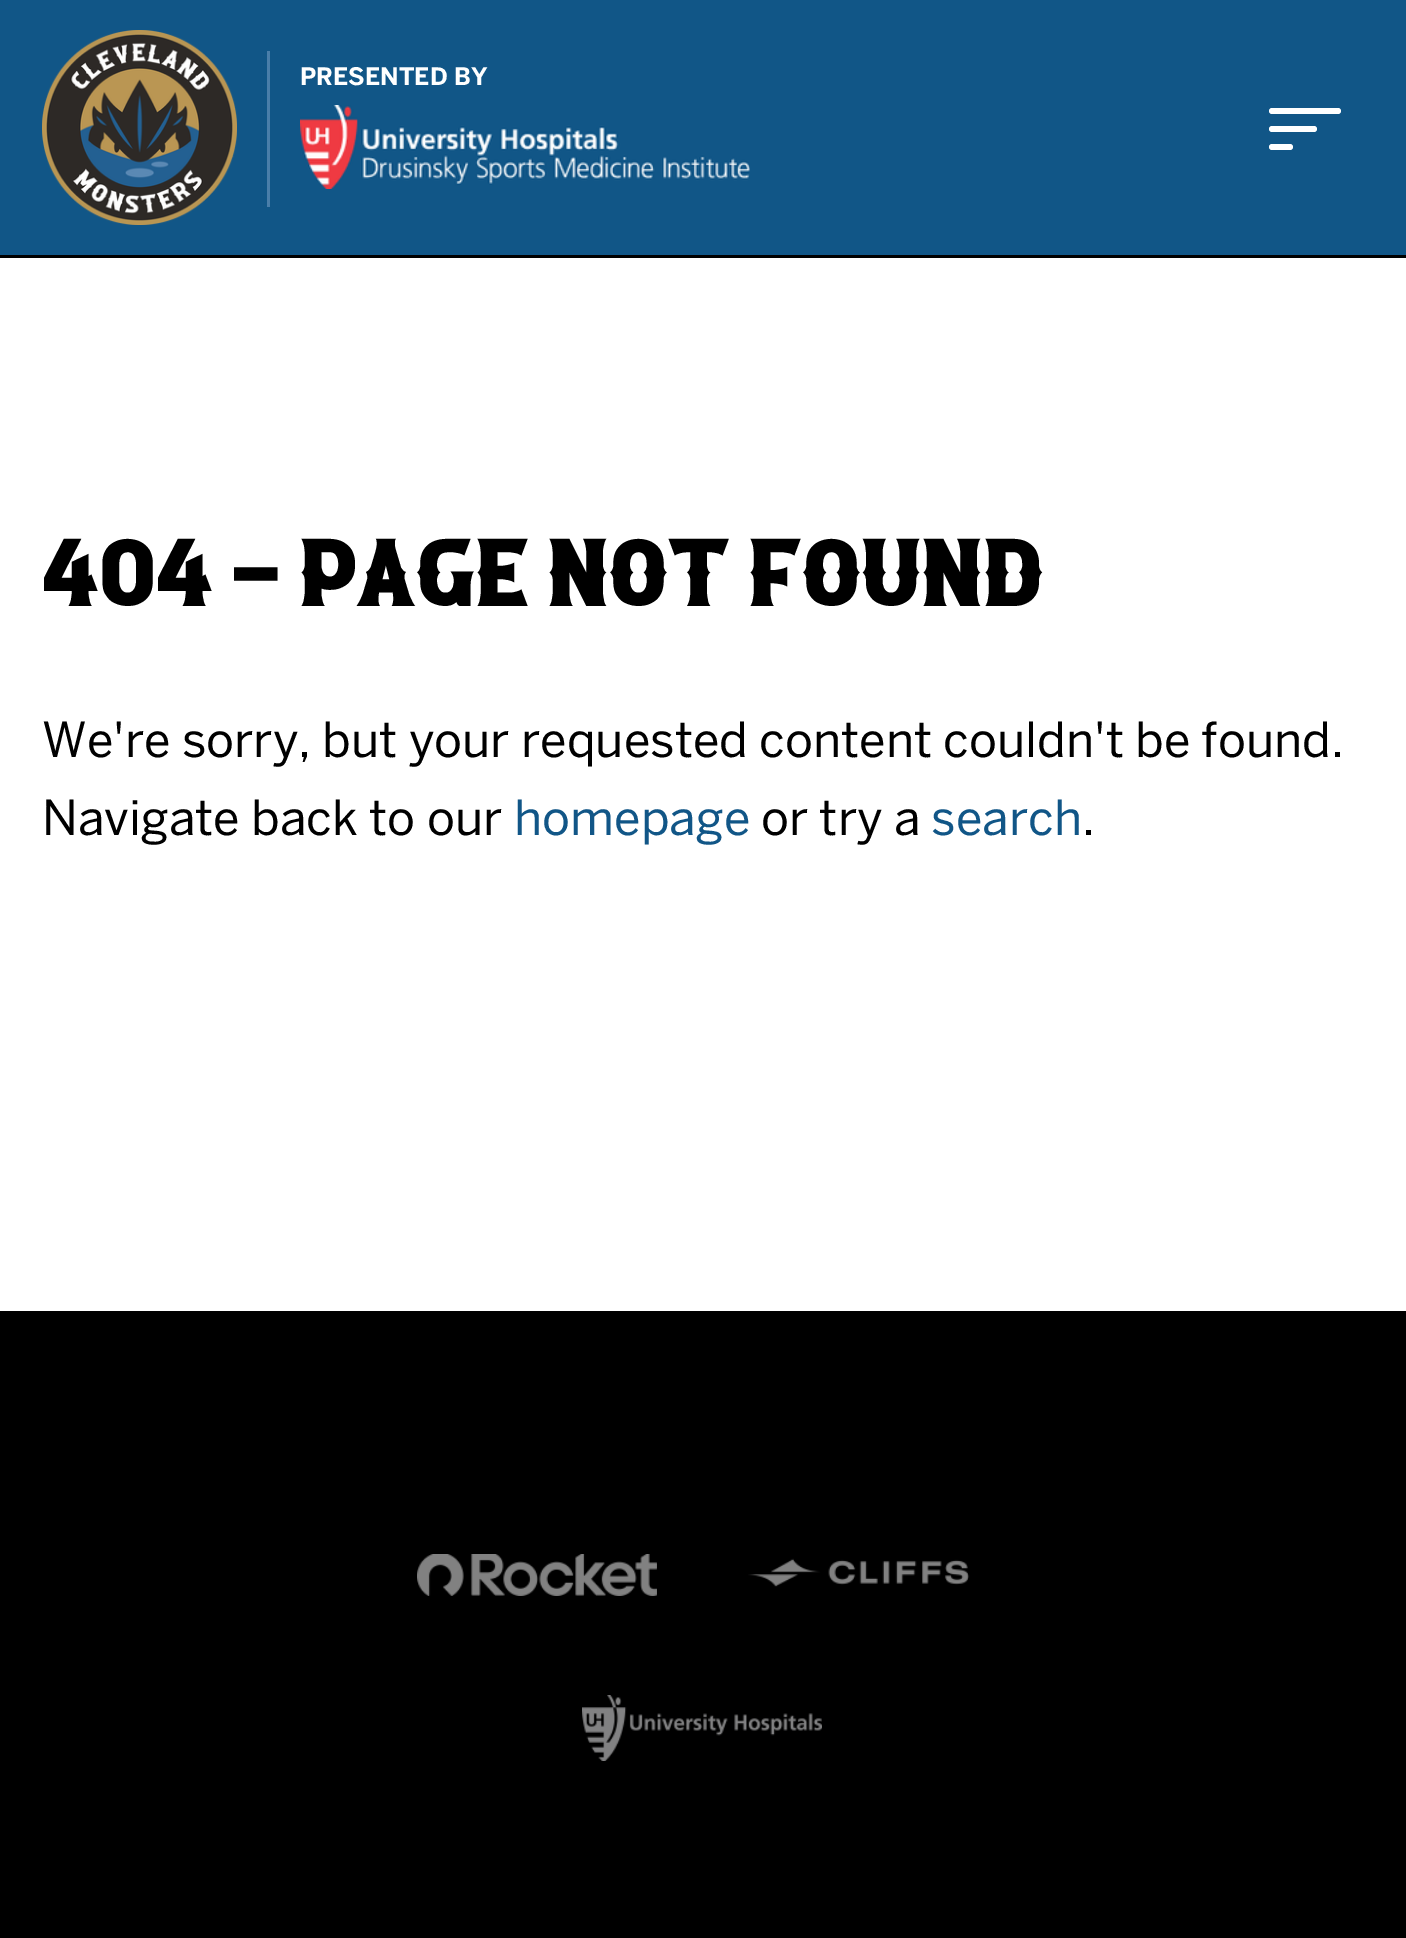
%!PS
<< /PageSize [1406 1938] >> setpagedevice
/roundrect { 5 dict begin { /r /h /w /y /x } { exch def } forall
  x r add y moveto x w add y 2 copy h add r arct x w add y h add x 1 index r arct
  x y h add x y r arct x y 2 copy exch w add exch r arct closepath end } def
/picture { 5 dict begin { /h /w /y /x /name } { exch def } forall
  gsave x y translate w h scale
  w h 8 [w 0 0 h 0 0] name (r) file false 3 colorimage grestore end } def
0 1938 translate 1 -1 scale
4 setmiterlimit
1 setgray
0 0 1406 1938 rectfill
0.067 0.337 0.529 setrgbcolor
0 0 1406 255 rectfill
(img1.rgb) 42 30 195 195 picture
0.29 0.494 0.663 setrgbcolor
267 51 3 156 rectfill
/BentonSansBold-Bold [24 0 0 -24 0 0] selectfont
1 setgray
300 85 moveto (PRESENTED BY) show
(img2.rgb) 300 105 450 84 picture
1269 108 72 6 3 roundrect fill
1269 126 48 6 3 roundrect fill
1269 144 24 6 3 roundrect fill
0 setgray
0 255 1406 3 rectfill
/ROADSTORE-Regular [96 0 0 -96 0 0] selectfont
42 606 moveto (404 - page not found) show
/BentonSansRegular-Regular [48 0 0 -48 0 0] selectfont
42 757 moveto (We're sorry, but your requested content couldn't be found.) show
42 835 moveto (Navigate back to our) show
0.067 0.337 0.529 setrgbcolor
514 835 moveto (homepage) show
0 setgray
761 835 moveto (or try a) show
0.067 0.337 0.529 setrgbcolor
931 835 moveto (search) show
0 setgray
1082 835 moveto (.) show
0 1311 1406 627 rectfill
(img3.rgb) 417 1554 240 42 picture
(img4.rgb) 748 1558 222 29 picture
(img5.rgb) 582 1695 240 66 picture
showpage
